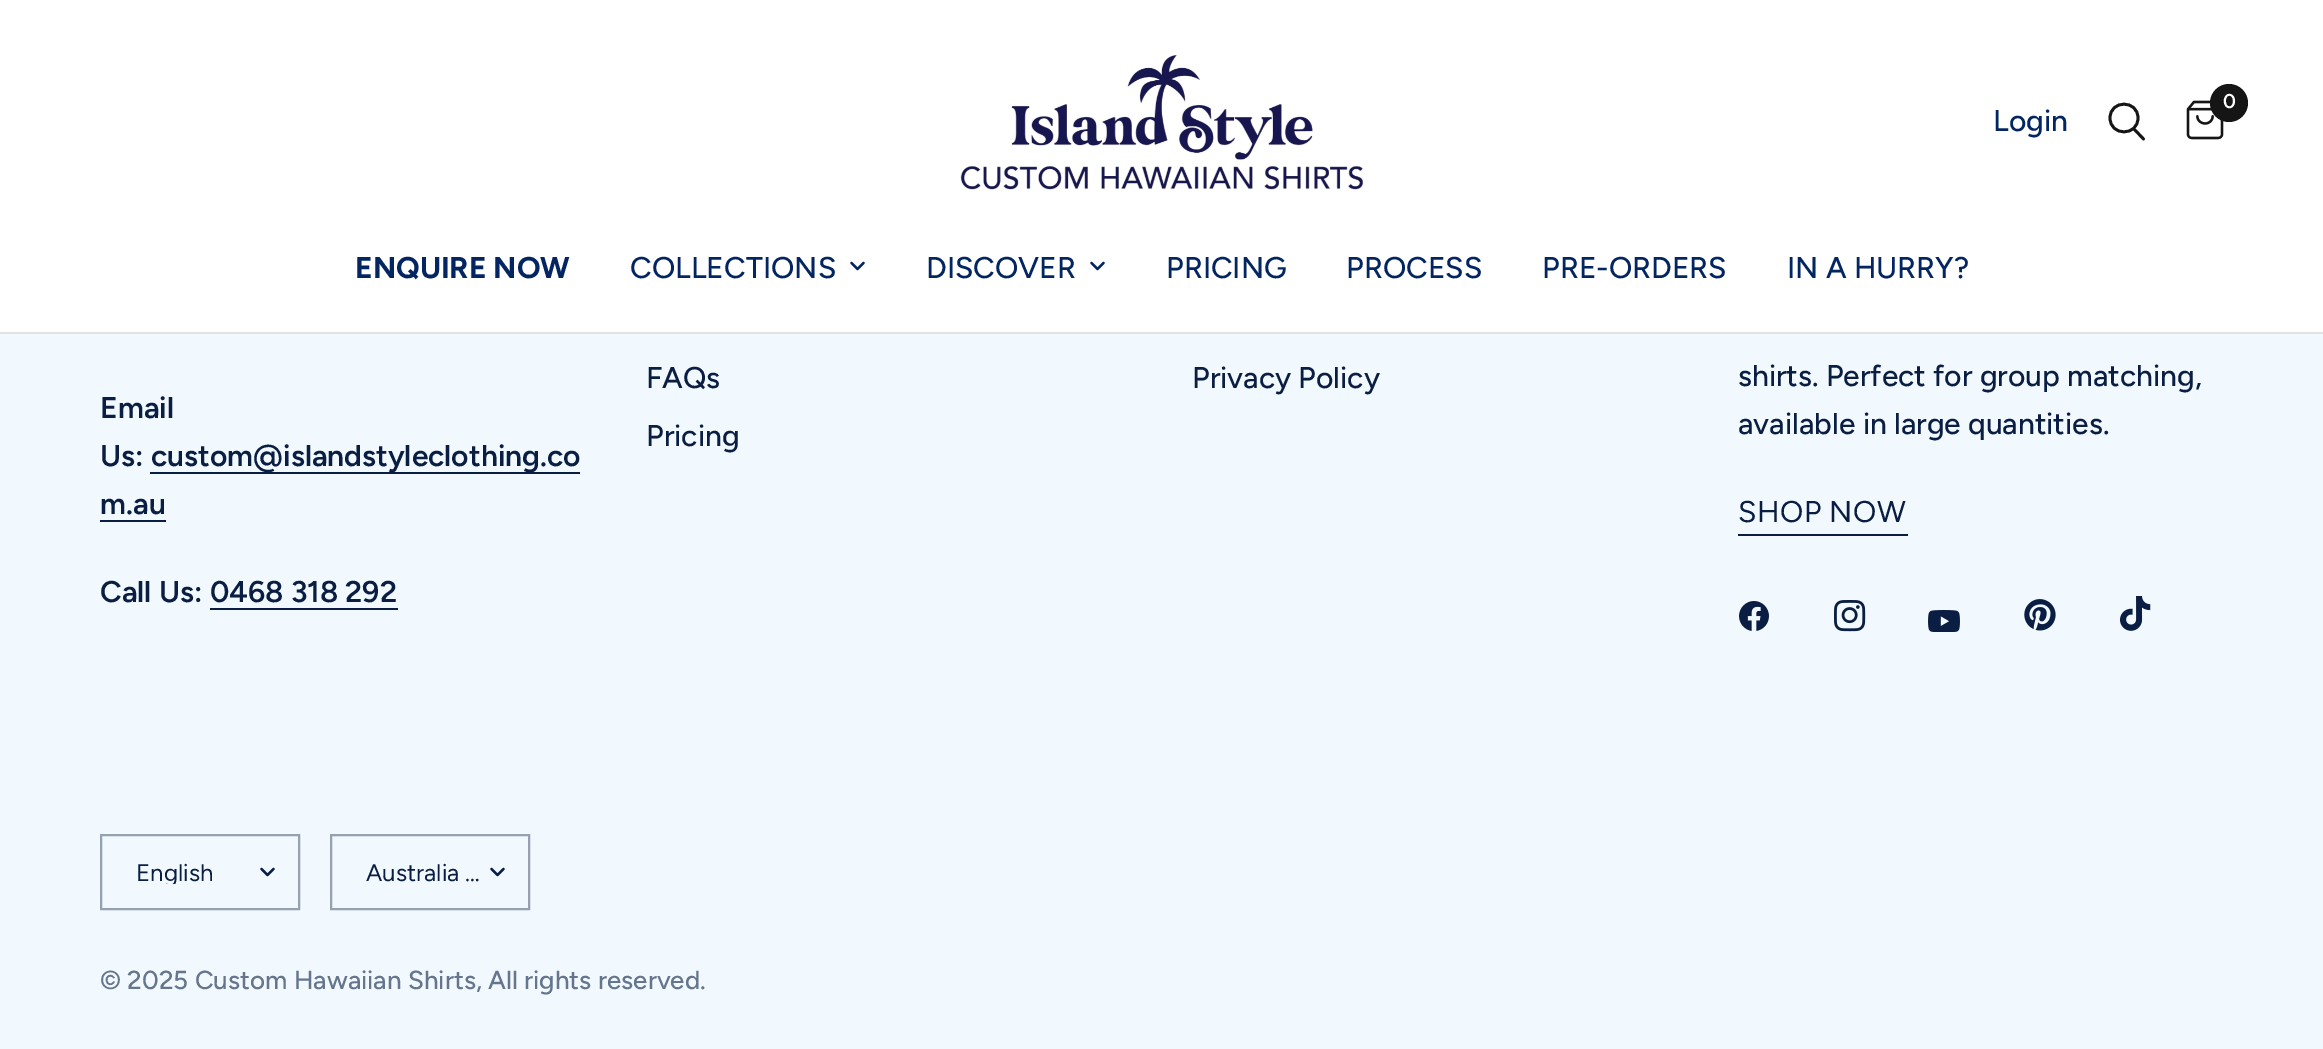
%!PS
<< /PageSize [2323 1049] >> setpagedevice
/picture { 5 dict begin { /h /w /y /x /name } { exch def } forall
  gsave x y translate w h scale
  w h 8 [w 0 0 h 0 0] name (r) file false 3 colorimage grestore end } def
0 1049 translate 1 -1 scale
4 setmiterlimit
0.945 0.976 0.996 setrgbcolor
0 0 2323 1049 rectfill
1 setgray
0 0 2323 332 rectfill
0.886 setgray
0 332 2323 2 rectfill
(img1.rgb) 960 55 404 135 picture
/Figtree-Medium [30 0 0 -30 0 0] selectfont
0.012 0.145 0.38 setrgbcolor
1993 131 moveto (Login) show
0.082 setgray
2.8 setlinewidth
1 setlinecap
1 setlinejoin
newpath 2134 129 moveto 2143.5 139 lineto 2138 118 moveto 2138 136.5 2110 136.5 2110 118 curveto 2110 99.5 2138 99.5 2138 118 curveto closepath stroke
(img2.rgb) 2186 100 38 40 picture
newpath 2229 103 19 0 360 arc closepath fill
/Figtree-SemiBold [20 0 0 -20 0 0] selectfont
1 setgray
2223 108 moveto (0) show
/Figtree-Bold [30 0 0 -30 0 0] selectfont
0.012 0.145 0.38 setrgbcolor
355 278 moveto (ENQUIRE NOW) show
/Figtree-Medium [30 0 0 -30 0 0] selectfont
630 278 moveto (COLLECTIONS) show
2.2 setlinewidth
newpath 863.5 263 moveto 857.5 269 lineto 851.5 263 lineto stroke
926 278 moveto (DISCOVER) show
newpath 1103.5 263 moveto 1097.5 269 lineto 1091.5 263 lineto stroke
1166 278 moveto (PRICING) show
1346 278 moveto (PROCESS) show
1542 278 moveto (PRE-ORDERS) show
1787 278 moveto (IN A HURRY?) show
0.039 0.114 0.263 setrgbcolor
646 388 moveto (FAQs) show
646 446 moveto (Pricing) show
1192 388 moveto (Privacy Policy) show
1738 386 moveto (shirts. Perfect for group matching,) show
1738 434 moveto (available in large quantities.) show
/Figtree-Regular [30 0 0 -30 0 0] selectfont
1738 522 moveto 0.5 0 (SHOP NOW) ashow
1738 534 170 2 rectfill
(img3.rgb) 1739 601 30 30 picture
(img4.rgb) 1834 600 32 32 picture
(img5.rgb) 1928 610 32 22 picture
(img6.rgb) 2024 599 32 32 picture
(img7.rgb) 2120 596 31 35 picture
/Figtree-SemiBold [30 0 0 -30 0 0] selectfont
100 418 moveto (Email) show
100 466 moveto (Us:) show
150 472 430 2 rectfill
151 466 moveto (custom@islandstyleclothing.co) show
100 514 moveto (m.au) show
100 520 66 2 rectfill
100 602 moveto (Call Us: 0468 318 292) show
210 608 188 2 rectfill
0.584 0.631 0.702 setrgbcolor
2 setlinewidth
0 setlinecap
0 setlinejoin
101 835 198 74 rectstroke
gsave
136 860 114 24 rectclip
/Figtree-Regular [24 0 0 -24 0 0] selectfont
0.039 0.114 0.263 setrgbcolor
136 881 moveto (English) show
grestore
0.039 0.114 0.263 setrgbcolor
2.2 setlinewidth
1 setlinecap
1 setlinejoin
newpath 273.5 869 moveto 267.5 875 lineto 261.5 869 lineto stroke
0.584 0.631 0.702 setrgbcolor
2 setlinewidth
0 setlinecap
0 setlinejoin
331 835 198 74 rectstroke
/Figtree-Regular [24 0 0 -24 0 0] selectfont
0.039 0.114 0.263 setrgbcolor
366 881 moveto (Australia …) show
2.2 setlinewidth
1 setlinecap
1 setlinejoin
newpath 503.5 869 moveto 497.5 875 lineto 491.5 869 lineto stroke
/Figtree-Medium [26 0 0 -26 0 0] selectfont
0.4 0.459 0.557 setrgbcolor
100 989 moveto (© 2025 Custom Hawaiian Shirts, All rights reserved.) show
showpage
